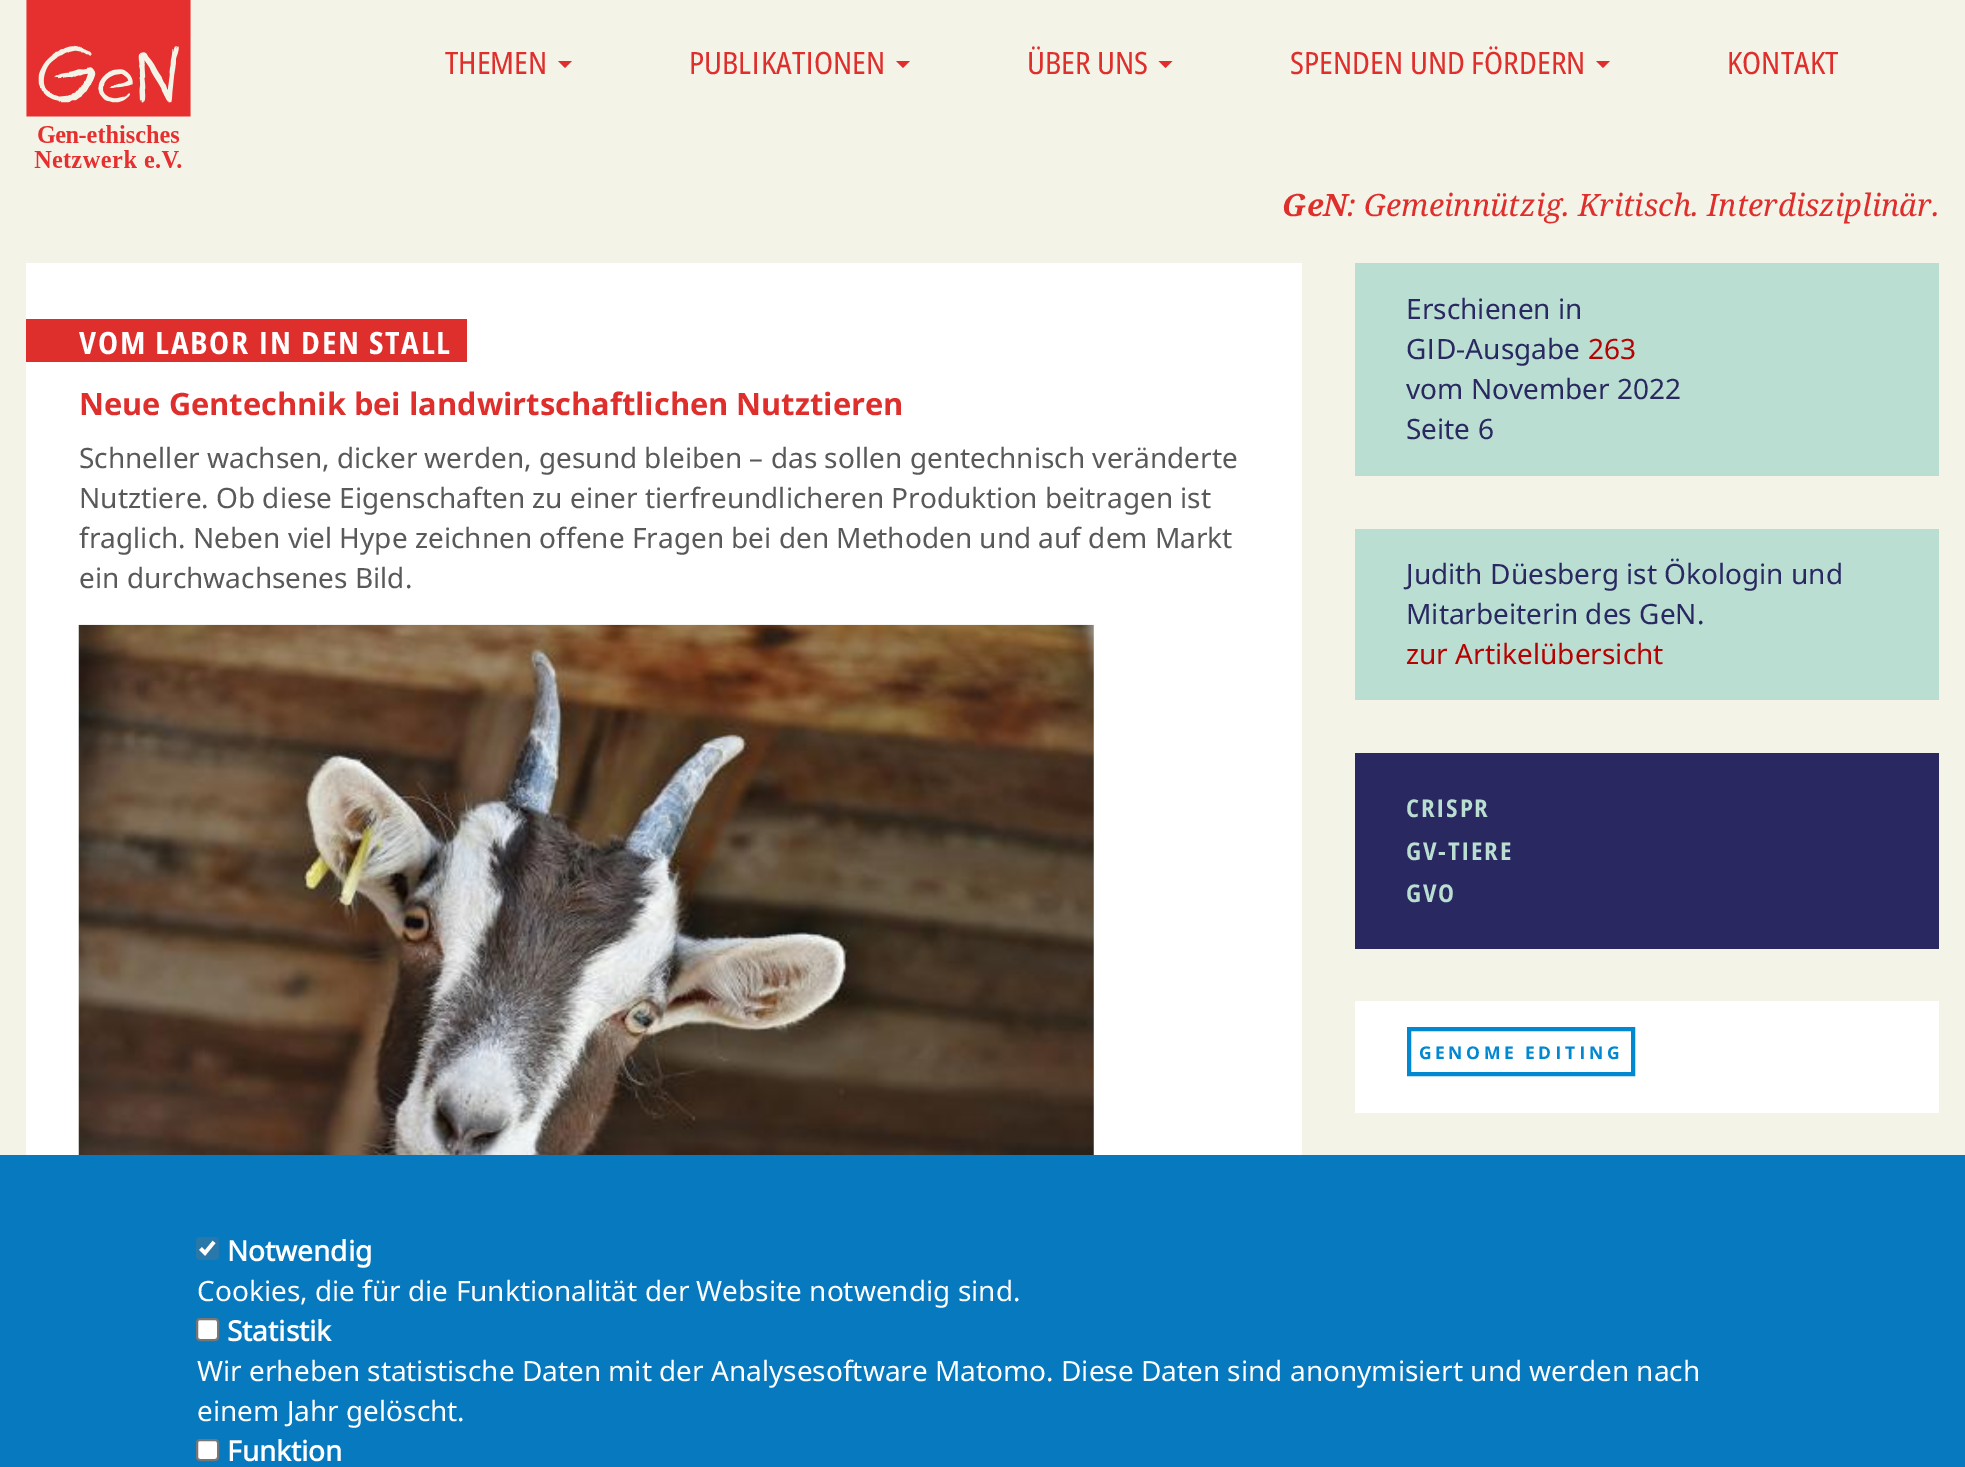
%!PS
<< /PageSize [1965 1467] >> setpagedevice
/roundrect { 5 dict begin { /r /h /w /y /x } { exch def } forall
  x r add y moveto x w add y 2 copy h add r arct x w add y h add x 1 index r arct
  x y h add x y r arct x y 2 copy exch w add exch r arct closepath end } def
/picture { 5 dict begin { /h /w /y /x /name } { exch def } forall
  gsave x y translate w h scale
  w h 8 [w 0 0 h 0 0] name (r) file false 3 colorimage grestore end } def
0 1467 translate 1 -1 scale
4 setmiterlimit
0.957 0.953 0.91 setrgbcolor
0 0 1965 1467 rectfill
(img1.rgb) 26 0 165 168 picture
/NotoSans-Regular [30.8 0 0 -30.8 0 0] selectfont
0.875 0.184 0.176 setrgbcolor
445 74 moveto (THEMEN) show
newpath 558 61 moveto 572 61 lineto 565 68 lineto closepath fill
689 74 moveto (PUBLIKATIONEN) show
newpath 896 61 moveto 910 61 lineto 903 68 lineto closepath fill
1027 74 moveto (ÜBER UNS) show
newpath 1158.5 61 moveto 1172.5 61 lineto 1165.5 68 lineto closepath fill
1290 74 moveto (SPENDEN UND FÖRDERN) show
newpath 1596 61 moveto 1610 61 lineto 1603 68 lineto closepath fill
1727 74 moveto (KONTAKT) show
/NotoSerif-BoldItalic [30.8 0 0 -30.8 0 0] selectfont
1282 216 moveto (GeN) show
/NotoSerif-Italic [30.8 0 0 -30.8 0 0] selectfont
1347 216 moveto (: Gemeinnützig. Kritisch. Interdisziplinär.) show
1 setgray
26 263 1276 892 rectfill
0.875 0.184 0.176 setrgbcolor
26 319 441 43 rectfill
/NotoSans-Bold [30.8 0 0 -30.8 0 0] selectfont
1 setgray
79 354 moveto 1.75 0 (VOM LABOR IN DEN STALL) ashow
/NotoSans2-Bold [30.8 0 0 -30.8 0 0] selectfont
0.875 0.184 0.176 setrgbcolor
79 415 moveto (Neue Gentechnik bei landwirtschaftlichen Nutztieren) show
/NotoSans2-Regular [28 0 0 -28 0 0] selectfont
0.349 setgray
79 468 moveto (Schneller wachsen, dicker werden, gesund bleiben – das sollen gentechnisch veränderte) show
79 508 moveto (Nutztiere. Ob diese Eigenschaften zu einer tierfreundlicheren Produktion beitragen ist) show
79 548 moveto (fraglich. Neben viel Hype zeichnen offene Fragen bei den Methoden und auf dem Markt) show
79 588 moveto (ein durchwachsenes Bild.) show
(img2.rgb) 78 624 1016 531 picture
0.729 0.871 0.824 setrgbcolor
1355 263 584 213 rectfill
0.161 0.157 0.376 setrgbcolor
1406 319 moveto (Erschienen in) show
1406 359 moveto (GID-Ausgabe) show
0.71 0.004 0.004 setrgbcolor
1588 359 moveto (263) show
0.161 0.157 0.376 setrgbcolor
1406 399 moveto (vom November 2022) show
1406 439 moveto (Seite 6) show
0.729 0.871 0.824 setrgbcolor
1355 529 584 171 rectfill
0.161 0.157 0.376 setrgbcolor
1406 584 moveto (Judith Düesberg ist Ökologin und) show
1406 624 moveto (Mitarbeiterin des GeN.) show
0.71 0.004 0.004 setrgbcolor
1406 664 moveto (zur Artikelübersicht) show
0.161 0.157 0.376 setrgbcolor
1355 753 584 196 rectfill
/NotoSans-Bold [24.5 0 0 -24.5 0 0] selectfont
0.729 0.871 0.824 setrgbcolor
1406 817 moveto 1.75 0 (CRISPR) ashow
1406 860 moveto 1.75 0 (GV-TIERE) ashow
1406 902 moveto 1.75 0 (GVO) ashow
1 setgray
1355 1001 584 112 rectfill
0.008 0.533 0.82 setrgbcolor
4 setlinewidth
1409 1029 224 45 rectstroke
/NotoSans2-Bold [17.5 0 0 -17.5 0 0] selectfont
1419 1059 moveto 3.5 0 (GENOME EDITING) ashow
0.027 0.475 0.749 setrgbcolor
0 1155 1965 312 rectfill
0.157 0.471 0.663 setrgbcolor
196 1237 23 23 4 roundrect fill
1 setgray
3.6 setlinewidth
newpath 200.5 1248.5 moveto 205 1253 lineto 214 1242 lineto stroke
/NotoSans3-Bold [28 0 0 -28 0 0] selectfont
227 1261 moveto (Notwendig) show
/NotoSans2-Regular [28 0 0 -28 0 0] selectfont
197 1301 moveto (Cookies, die für die Funktionalität der Website notwendig sind.) show
197 1319 21 21 3 roundrect gsave fill grestore
0.463 setgray
2 setlinewidth
stroke
/NotoSans3-Bold [28 0 0 -28 0 0] selectfont
1 setgray
227 1341 moveto (Statistik) show
/NotoSans2-Regular [28 0 0 -28 0 0] selectfont
197 1381 moveto (Wir erheben statistische Daten mit der Analysesoftware Matomo. Diese Daten sind anonymisiert und werden nach) show
197 1421 moveto (einem Jahr gelöscht.) show
197 1440 21 20 3 roundrect gsave fill grestore
0.463 setgray
stroke
/NotoSans3-Bold [28 0 0 -28 0 0] selectfont
1 setgray
227 1461 moveto (Funktion) show
showpage
